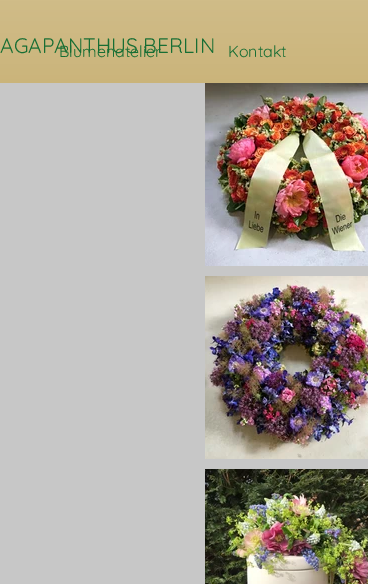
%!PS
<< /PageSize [368 584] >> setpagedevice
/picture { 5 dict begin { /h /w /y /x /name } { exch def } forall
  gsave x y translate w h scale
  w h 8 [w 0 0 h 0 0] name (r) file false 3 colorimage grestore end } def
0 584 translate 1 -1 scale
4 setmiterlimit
0.78 setgray
0 0 368 584 rectfill
0.749 0.643 0.369 setrgbcolor
0 0 368 83 rectfill
(img1.rgb) 0 0 368 83 picture
/Quicksand-Regular [21 0 0 -21 0 0] selectfont
0.09 0.431 0.204 setrgbcolor
0 53 moveto (AGAPANTHUS BERLIN) show
/Quicksand-Regular [16 0 0 -16 0 0] selectfont
59 57 moveto (Blumenatelier) show
228 57 moveto (Kontakt) show
(img2.rgb) 205 83 163 183 picture
(img3.rgb) 205 276 163 183 picture
(img4.rgb) 205 469 163 115 picture
showpage
